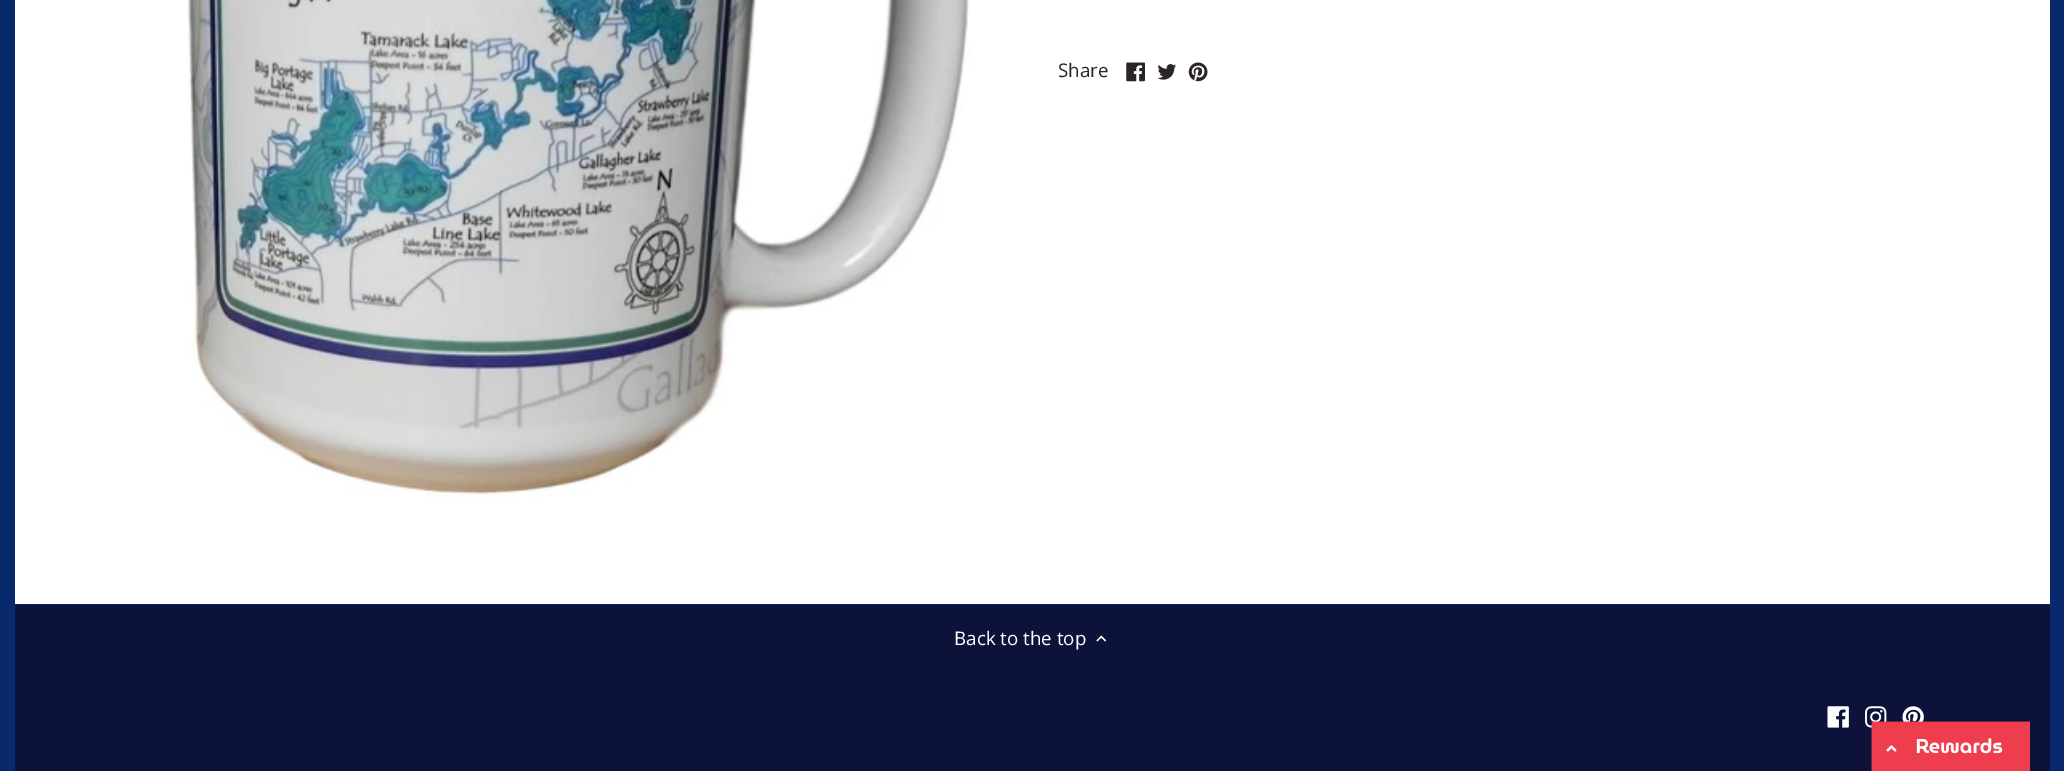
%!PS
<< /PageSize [2064 771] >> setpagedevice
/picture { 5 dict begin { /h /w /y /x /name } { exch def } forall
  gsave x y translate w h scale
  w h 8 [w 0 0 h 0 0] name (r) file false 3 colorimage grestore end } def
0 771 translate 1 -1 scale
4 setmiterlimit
0.047 0.071 0.224 setrgbcolor
0 0 2064 771 rectfill
0.031 0.161 0.424 setrgbcolor
15 setlinewidth
7.5 -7.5 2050 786 rectstroke
1 setgray
15 0 2035 604 rectfill
(img1.rgb) 187 0 783 497 picture
/OpenSans-Regular [18.75 0 0 -18.75 0 0] selectfont
0.173 0.145 0.157 setrgbcolor
1058 77 moveto (Share) show
(img2.rgb) 1126 62 19 20 picture
(img3.rgb) 1157 64 19 16 picture
(img4.rgb) 1188 62 20 20 picture
0.031 0.161 0.424 setrgbcolor
15 604 2035 1 rectfill
1 setgray
954 645 moveto (Back to the top) show
(img5.rgb) 1096 635 11 7 picture
(img6.rgb) 1827 706 22 22 picture
(img7.rgb) 1865 706 22 22 picture
(img8.rgb) 1902 706 22 16 picture
(img9.rgb) 1871 721 159 50 picture
showpage
